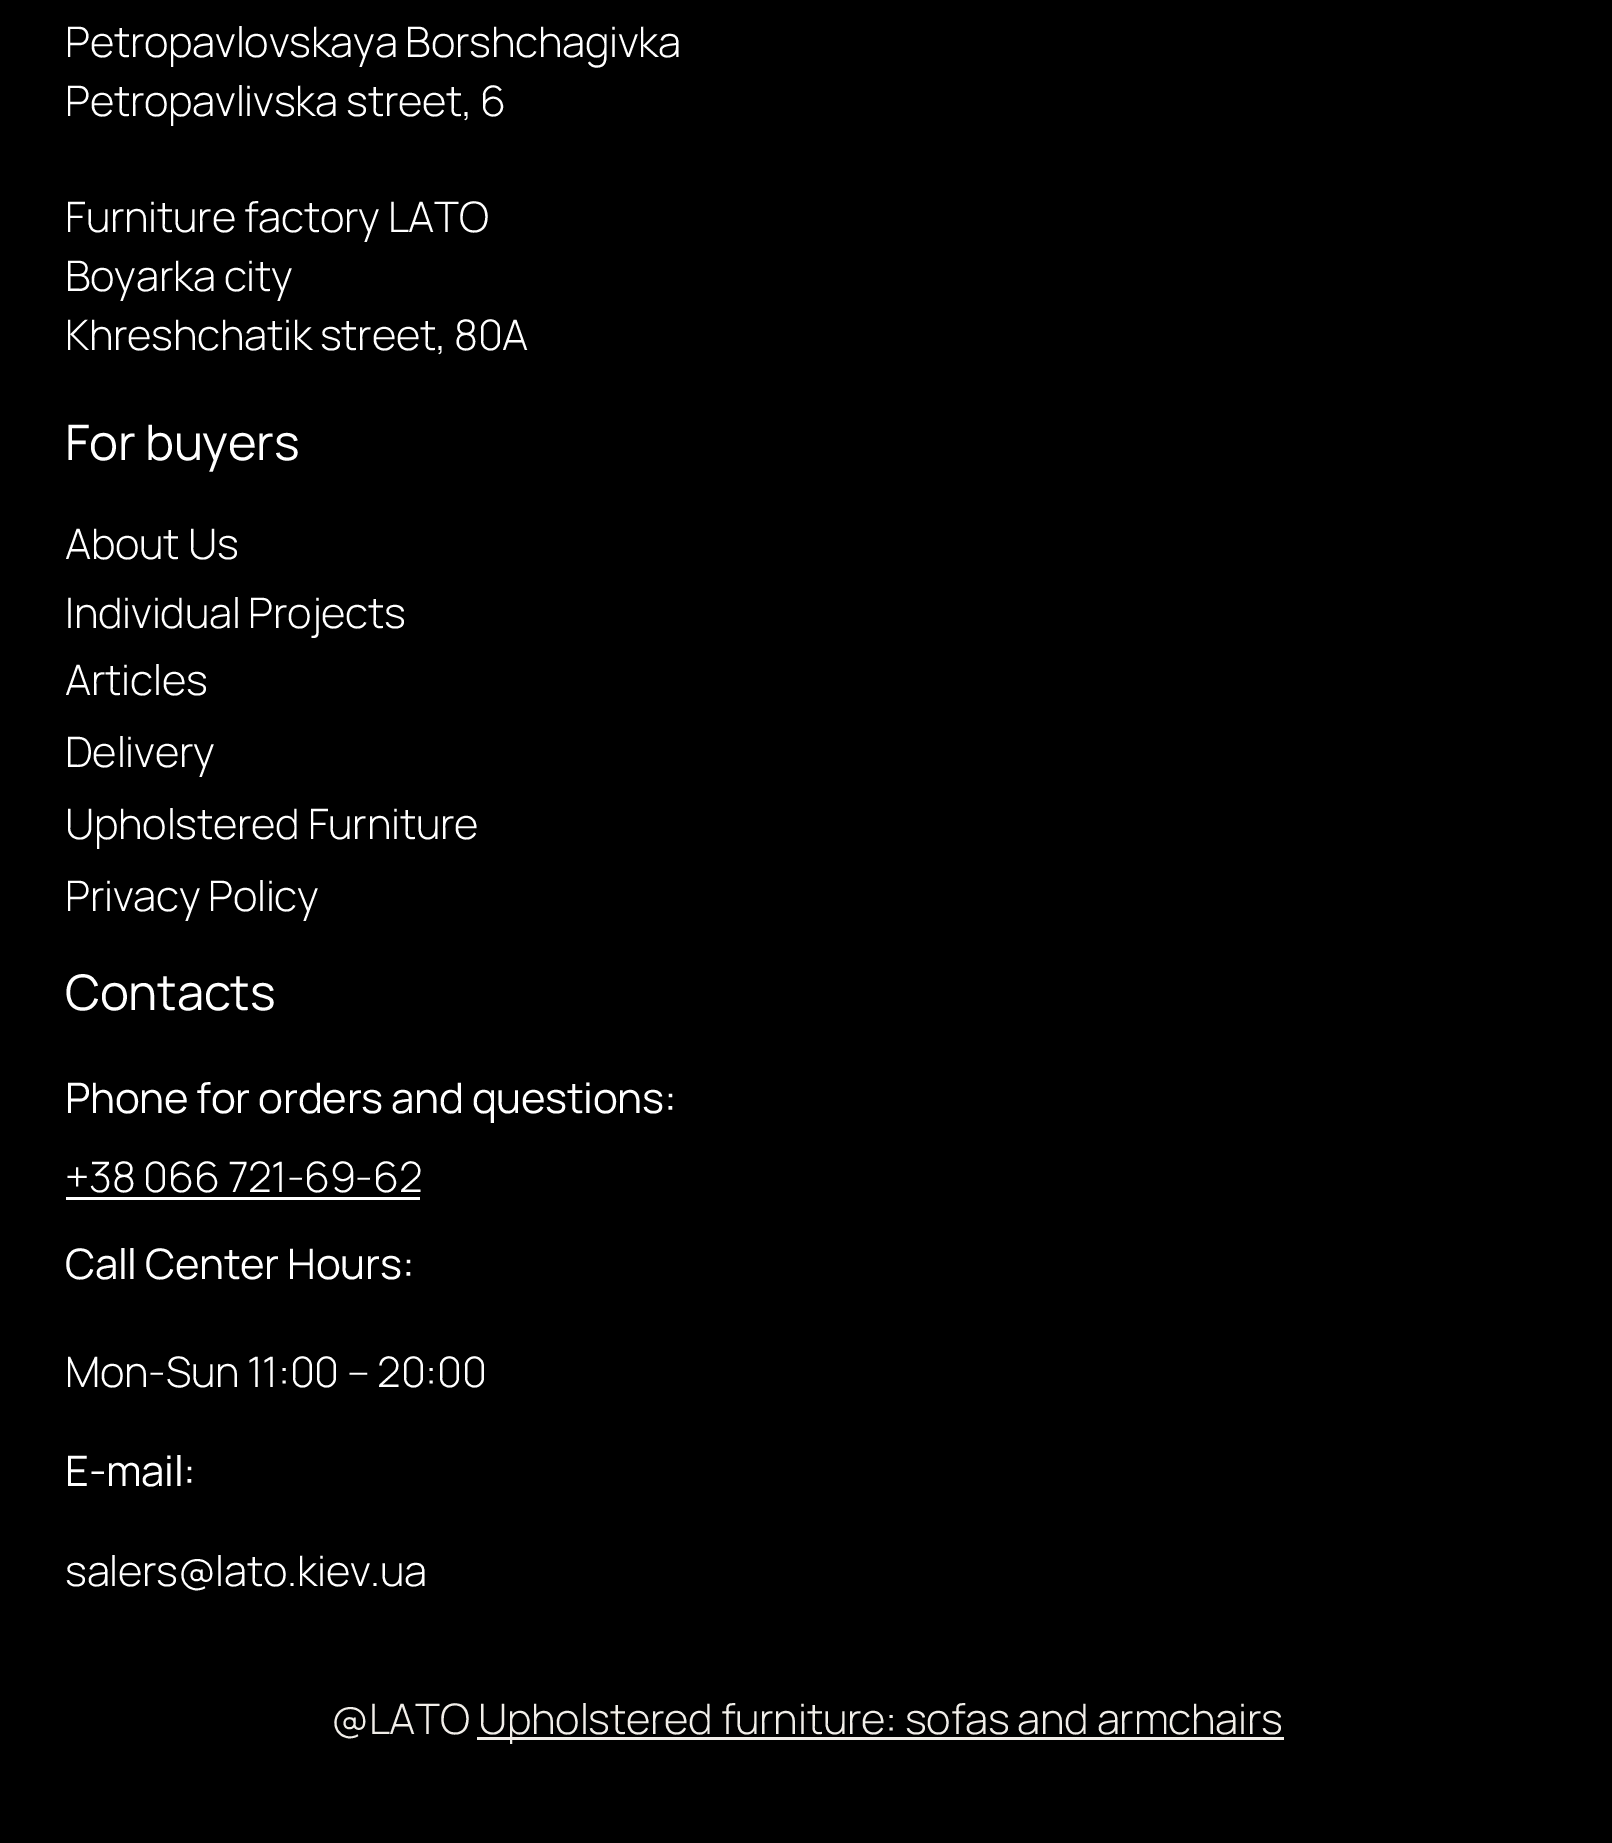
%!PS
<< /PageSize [1612 1843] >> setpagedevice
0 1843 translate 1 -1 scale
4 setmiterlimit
0 setgray
0 0 1612 1843 rectfill
/Manrope-Light [42 0 0 -42 0 0] selectfont
1 setgray
65 57 moveto -0.3 0 (Petropavlovskaya Borshchagivka) ashow
65 116 moveto -0.3 0 (Petropavlivska street, 6) ashow
65 232 moveto -0.3 0 (Furniture factory LATO) ashow
65 291 moveto -0.3 0 (Boyarka city) ashow
65 350 moveto -0.3 0 (Khreshchatik street, 80A) ashow
/Manrope-Regular [49 0 0 -49 0 0] selectfont
65 460 moveto -0.3 0 (For buyers) ashow
/Manrope-Light [42 0 0 -42 0 0] selectfont
65 559 moveto -0.3 0 (About Us) ashow
65 628 moveto -0.3 0 (Individual Projects) ashow
65 695 moveto -0.3 0 (Articles) ashow
65 767 moveto -0.3 0 (Delivery) ashow
65 839 moveto -0.3 0 (Upholstered Furniture) ashow
65 911 moveto -0.3 0 (Privacy Policy) ashow
/Manrope-Regular [49 0 0 -49 0 0] selectfont
65 1010 moveto -0.3 0 (Contacts) ashow
/Manrope-Regular [42 0 0 -42 0 0] selectfont
65 1113 moveto -0.3 0 (Phone for orders and questions:) ashow
/Manrope-Light [42 0 0 -42 0 0] selectfont
65 1192 moveto -0.3 0 (+38 066 721-69-62) ashow
66 1197 354 3 rectfill
/Manrope-Regular [42 0 0 -42 0 0] selectfont
65 1279 moveto -0.3 0 (Call Center Hours:) ashow
/Manrope-Light [42 0 0 -42 0 0] selectfont
65 1387 moveto -0.3 0 (Mon-Sun 11:00 – 20:00) ashow
/Manrope-Regular [42 0 0 -42 0 0] selectfont
65 1486 moveto -0.3 0 (E-mail:) ashow
/Manrope-Light [42 0 0 -42 0 0] selectfont
65 1586 moveto -0.3 0 (salers@lato.kiev.ua) ashow
0.945 0.933 0.914 setrgbcolor
331 1734 moveto -0.3 0 (@LATO) ashow
477 1737 807 3 rectfill
478 1734 moveto -0.3 0 (Upholstered furniture: sofas and armchairs) ashow
showpage
